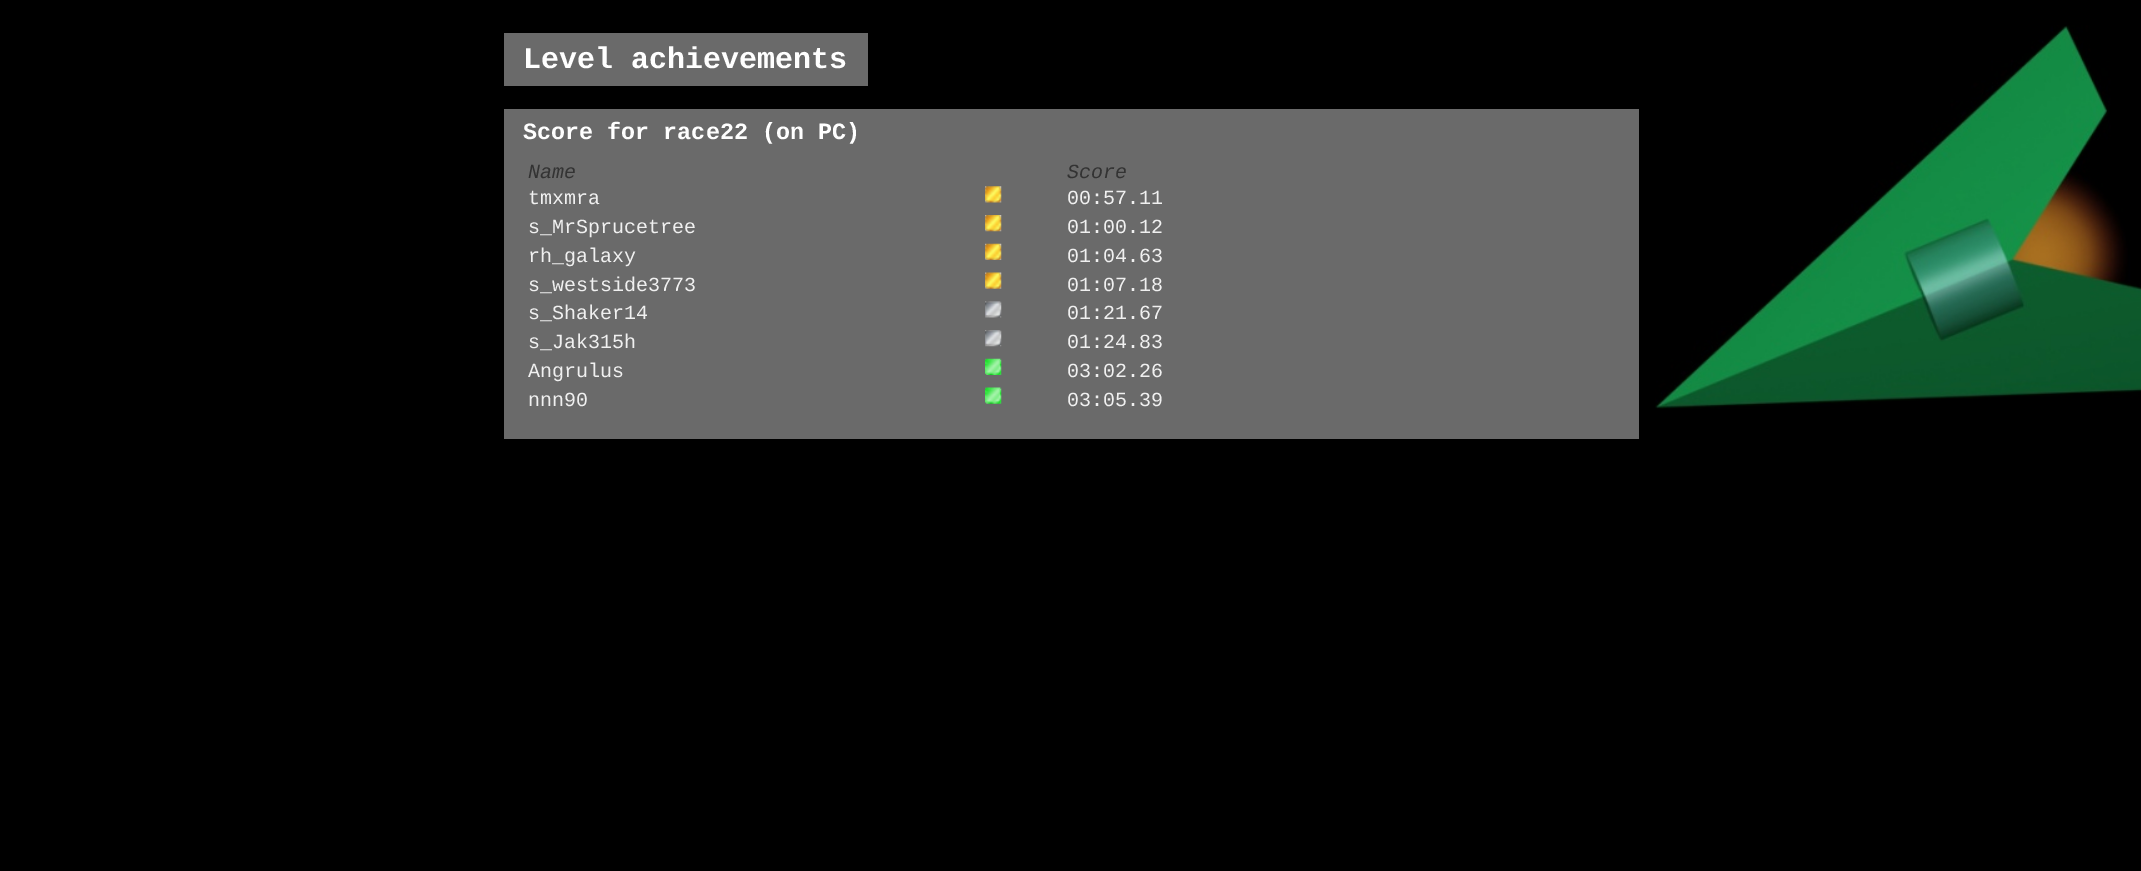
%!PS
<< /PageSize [2141 871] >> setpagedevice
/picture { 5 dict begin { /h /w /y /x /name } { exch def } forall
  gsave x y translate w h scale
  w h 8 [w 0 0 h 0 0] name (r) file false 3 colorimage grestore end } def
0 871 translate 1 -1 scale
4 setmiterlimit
0 setgray
0 0 2141 871 rectfill
(img1.rgb) 1655 25 486 384 picture
0.416 setgray
504 33 364 53 rectfill
/LiberationMono-Bold [30 0 0 -30 0 0] selectfont
1 setgray
523 68 moveto (Level achievements) show
0.416 setgray
504 109 1135 330 rectfill
/LiberationMono-Bold [23.4 0 0 -23.4 0 0] selectfont
1 setgray
523 139 moveto (Score for race22 \(on PC\)) show
/LiberationMono-Italic [20 0 0 -20 0 0] selectfont
0.2 setgray
528 178 moveto (Name) show
1067 178 moveto (Score) show
/LiberationMono-Regular [20 0 0 -20 0 0] selectfont
0.941 setgray
528 204 moveto (tmxmra) show
(img2.rgb) 985 186 17 17 picture
1067 204 moveto (00:57.11) show
528 233 moveto (s_MrSprucetree) show
(img3.rgb) 985 215 17 17 picture
1067 233 moveto (01:00.12) show
528 262 moveto (rh_galaxy) show
(img4.rgb) 985 243 17 17 picture
1067 262 moveto (01:04.63) show
528 291 moveto (s_westside3773) show
(img5.rgb) 985 272 17 17 picture
1067 291 moveto (01:07.18) show
528 319 moveto (s_Shaker14) show
(img6.rgb) 985 301 17 17 picture
1067 319 moveto (01:21.67) show
528 348 moveto (s_Jak315h) show
(img7.rgb) 985 330 17 17 picture
1067 348 moveto (01:24.83) show
528 377 moveto (Angrulus) show
(img8.rgb) 985 358 17 17 picture
1067 377 moveto (03:02.26) show
528 406 moveto (nnn90) show
(img9.rgb) 985 387 17 17 picture
1067 406 moveto (03:05.39) show
showpage
